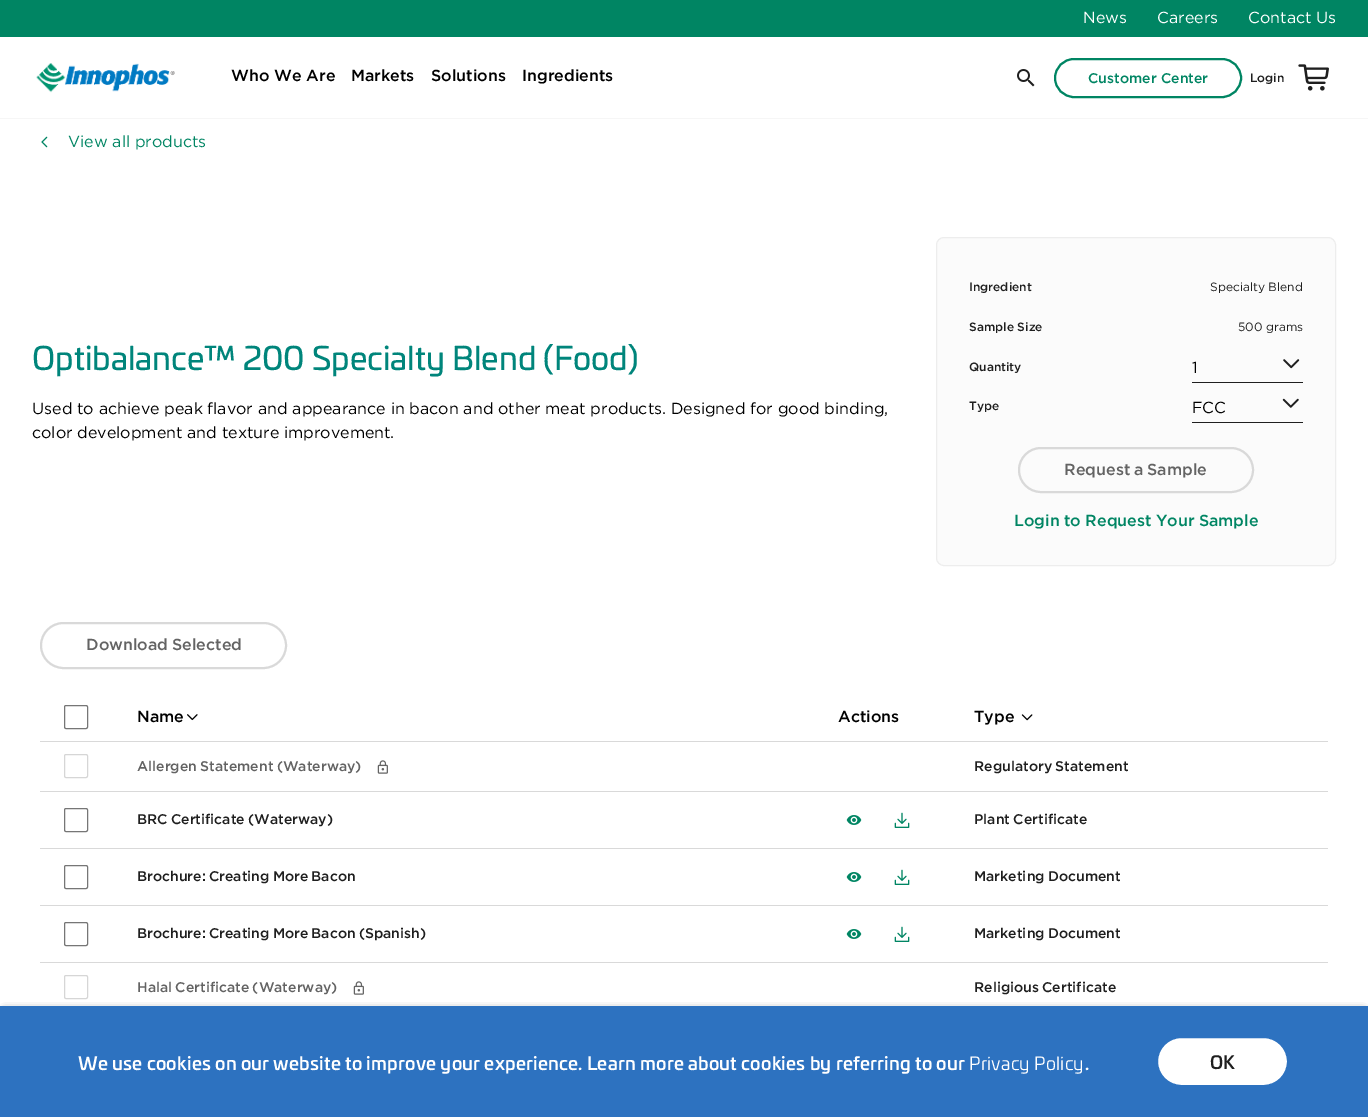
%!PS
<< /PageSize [1368 1117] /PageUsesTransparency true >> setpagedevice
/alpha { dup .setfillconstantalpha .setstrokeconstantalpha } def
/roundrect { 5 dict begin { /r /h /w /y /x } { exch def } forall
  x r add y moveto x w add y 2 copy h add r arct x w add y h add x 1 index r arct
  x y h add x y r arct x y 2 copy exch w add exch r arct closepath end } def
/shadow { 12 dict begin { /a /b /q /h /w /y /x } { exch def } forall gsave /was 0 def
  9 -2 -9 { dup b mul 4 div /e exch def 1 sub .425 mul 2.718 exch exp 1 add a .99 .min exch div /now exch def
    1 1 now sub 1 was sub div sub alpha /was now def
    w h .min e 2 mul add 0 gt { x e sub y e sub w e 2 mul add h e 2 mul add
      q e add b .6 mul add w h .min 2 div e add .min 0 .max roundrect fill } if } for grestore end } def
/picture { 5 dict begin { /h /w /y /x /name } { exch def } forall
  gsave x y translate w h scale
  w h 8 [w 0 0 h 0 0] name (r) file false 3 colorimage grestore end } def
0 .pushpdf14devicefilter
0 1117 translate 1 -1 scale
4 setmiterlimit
1 setgray
0 0 1368 1117 rectfill
0.965 setgray
0 118 1368 1 rectfill
0 0.522 0.388 setrgbcolor
0 0 1368 37 rectfill
/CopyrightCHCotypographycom-Light [16 0 0 -16 0 0] selectfont
1 setgray
1083 23 moveto (News) show
1157 23 moveto (Careers) show
1248 23 moveto (Contact Us) show
(img1.rgb) 36 63 139 30 picture
/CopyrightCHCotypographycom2-Light [16 0 0 -16 0 0] selectfont
0 setgray
231 81 moveto (Who We Are) show
351 81 moveto (Markets) show
431 81 moveto (Solutions) show
522 81 moveto (Ingredients) show
(img2.rgb) 1017 69 18 18 picture
0 0.522 0.388 setrgbcolor
2 setlinewidth
1055 59 186 38 19 roundrect stroke
/CopyrightCHCotypographycom2-Light [14 0 0 -14 0 0] selectfont
1088 83 moveto (Customer Center) show
/CopyrightCHCotypographycom2-Light [12 0 0 -12 0 0] selectfont
0.122 setgray
1250 82 moveto (Login) show
(img3.rgb) 1298 64 31 27 picture
(img4.rgb) 41 136 7 12 picture
/CopyrightCHCotypographycom-Light [16 0 0 -16 0 0] selectfont
0 0.522 0.388 setrgbcolor
68 147 moveto (View all products) show
/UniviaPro-Regular [32 0 0 -32 0 0] selectfont
0 0.522 0.482 setrgbcolor
32 370 moveto (Optibalance™ 200 Specialty Blend \(Food\)) show
/CopyrightCHCotypographycom-Light [16 0 0 -16 0 0] selectfont
0 setgray
32 414 moveto (Used to achieve peak flavor and appearance in bacon and other meat products. Designed for good binding,) show
32 438 moveto (color development and texture improvement.) show
0.984 setgray
936.5 237.5 399 328 7.5 roundrect gsave fill grestore
0.929 setgray
1 setlinewidth
stroke
/CopyrightCHCotypographycom2-Light [12 0 0 -12 0 0] selectfont
0.122 setgray
969 291 moveto (Ingredient) show
/CopyrightCHCotypographycom-Light [12 0 0 -12 0 0] selectfont
1210 291 moveto (Specialty Blend) show
/CopyrightCHCotypographycom2-Light [12 0 0 -12 0 0] selectfont
969 331 moveto (Sample Size) show
/CopyrightCHCotypographycom-Light [12 0 0 -12 0 0] selectfont
1238 331 moveto (500 grams) show
/CopyrightCHCotypographycom2-Light [12 0 0 -12 0 0] selectfont
969 371 moveto (Quantity) show
1192 382 111 1 rectfill
/CopyrightCHCotypographycom-Light [16 0 0 -16 0 0] selectfont
0 setgray
1192 373 moveto (1) show
(img5.rgb) 1283 359 17 10 picture
/CopyrightCHCotypographycom2-Light [12 0 0 -12 0 0] selectfont
0.122 setgray
969 410 moveto (Type) show
1192 422 111 1 rectfill
/CopyrightCHCotypographycom-Light [16 0 0 -16 0 0] selectfont
0 setgray
1192 413 moveto (FCC) show
(img6.rgb) 1282 398 17 10 picture
0.851 setgray
2 setlinewidth
1019 448 234 44 22 roundrect stroke
/CopyrightCHCotypographycom2-Light [16 0 0 -16 0 0] selectfont
0.388 setgray
1064 475 moveto -1 0 32 (Request a Sample) widthshow
0 0.522 0.388 setrgbcolor
1014 526 moveto -0.5 0 32 (Login to Request Your Sample) widthshow
0.851 setgray
41 623 245 45 22.5 roundrect stroke
0.388 setgray
86 650 moveto -1 0 32 (Download Selected) widthshow
0.851 setgray
40 741 1288 1 rectfill
0.463 setgray
1 setlinewidth
64.5 705.5 23 23 1.5 roundrect stroke
0 setgray
137 722 moveto (Name) show
(img7.rgb) 187 714 11 7 picture
838 722 moveto (Actions) show
974 722 moveto (Type) show
(img8.rgb) 1021 714 12 7 picture
0.839 setgray
64.5 754.5 23 23 1.5 roundrect stroke
/CopyrightCHCotypographycom2-Light [14 0 0 -14 0 0] selectfont
0.388 setgray
137 771 moveto -1 0 32 (Allergen Statement \(Waterway\)) widthshow
(img9.rgb) 377 760 11 14 picture
0.122 setgray
974 771 moveto -1 0 32 (Regulatory Statement) widthshow
0.851 setgray
40 791 1288 1 rectfill
0.463 setgray
64.5 808.5 23 23 1.5 roundrect stroke
0.122 setgray
137 824 moveto -1 0 32 (BRC Certificate \(Waterway\)) widthshow
(img10.rgb) 846 815 16 10 picture
(img11.rgb) 894 812 16 16 picture
974 824 moveto -1 0 32 (Plant Certificate) widthshow
0.851 setgray
40 848 1288 1 rectfill
0.463 setgray
64.5 865.5 23 23 1.5 roundrect stroke
0.122 setgray
137 881 moveto -1 0 32 (Brochure: Creating More Bacon) widthshow
(img10.rgb) 846 872 16 10 picture
(img11.rgb) 894 869 16 16 picture
974 881 moveto -1 0 32 (Marketing Document) widthshow
0.851 setgray
40 905 1288 1 rectfill
0.463 setgray
64.5 922.5 23 23 1.5 roundrect stroke
0.122 setgray
137 938 moveto -1 0 32 (Brochure: Creating More Bacon \(Spanish\)) widthshow
(img10.rgb) 846 929 16 10 picture
(img11.rgb) 894 926 16 16 picture
974 938 moveto -1 0 32 (Marketing Document) widthshow
0.851 setgray
40 962 1288 1 rectfill
0.839 setgray
64.5 975.5 23 23 1.5 roundrect stroke
0.388 setgray
137 992 moveto -1 0 32 (Halal Certificate \(Waterway\)) widthshow
(img9.rgb) 353 981 11 14 picture
0.122 setgray
974 992 moveto -1 0 32 (Religious Certificate) widthshow
0 setgray
5 1011 1358 101 0 4 1 shadow
0.176 0.447 0.753 setrgbcolor
0 1006 1368 111 rectfill
/UniviaPro-Medium [18 0 0 -18 0 0] selectfont
1 setgray
78 1070 moveto 0.2 0 (We use cookies on our website to improve your experience. Learn more about cookies by referring to our) ashow
/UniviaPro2-Regular [18 0 0 -18 0 0] selectfont
969 1070 moveto 0.2 0 (Privacy Policy) ashow
/UniviaPro-Medium [18 0 0 -18 0 0] selectfont
1085 1070 moveto 0.2 0 (.) ashow
1156.5 1036.5 132 50 25 roundrect gsave fill grestore
0.176 0.447 0.753 setrgbcolor
3 setlinewidth
stroke
0.122 setgray
1210 1069 moveto (OK) show
.poppdf14devicefilter showpage
